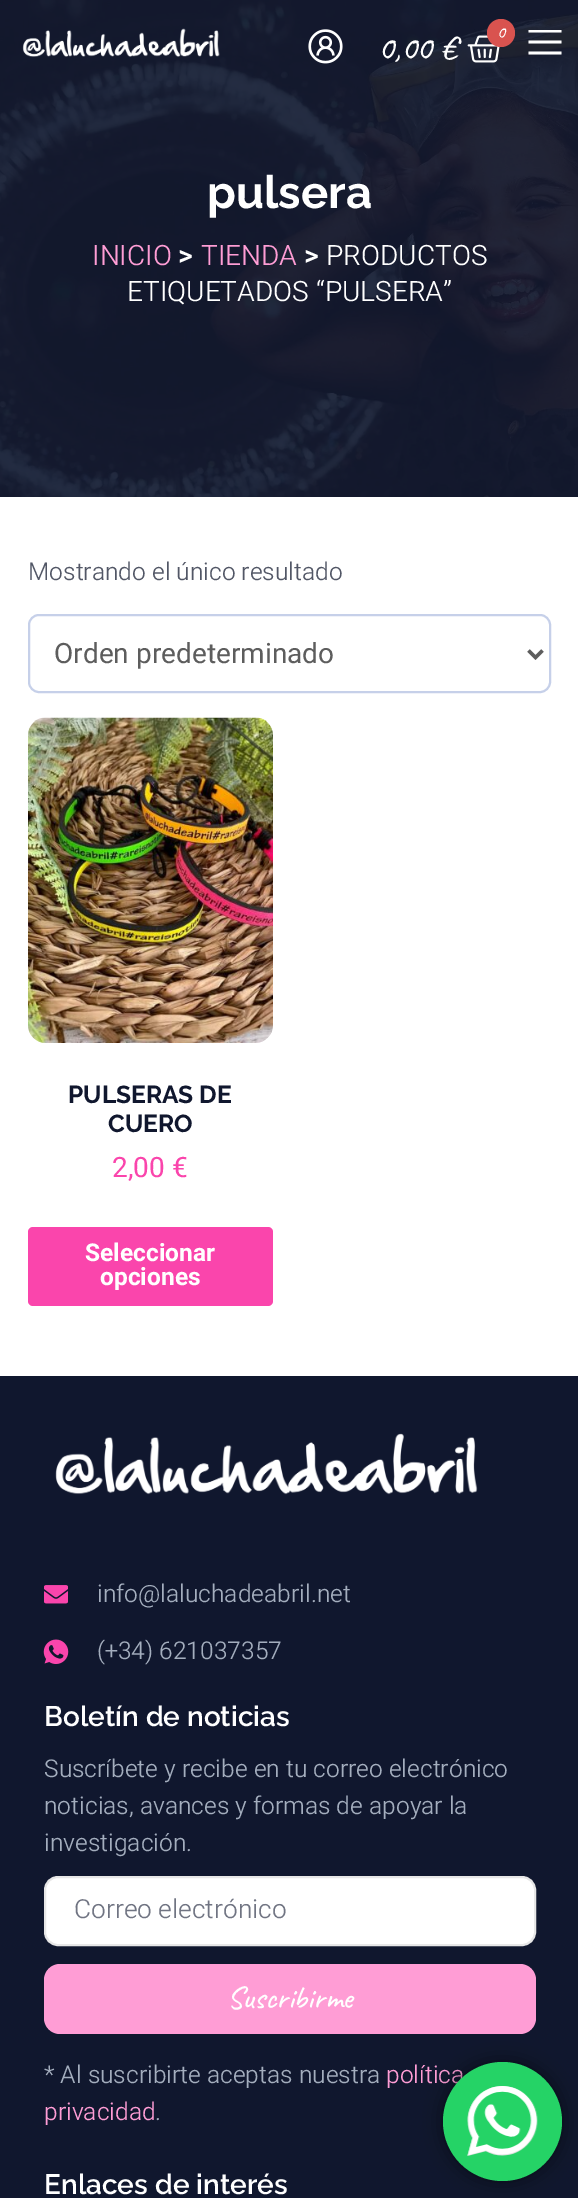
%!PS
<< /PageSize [578 2198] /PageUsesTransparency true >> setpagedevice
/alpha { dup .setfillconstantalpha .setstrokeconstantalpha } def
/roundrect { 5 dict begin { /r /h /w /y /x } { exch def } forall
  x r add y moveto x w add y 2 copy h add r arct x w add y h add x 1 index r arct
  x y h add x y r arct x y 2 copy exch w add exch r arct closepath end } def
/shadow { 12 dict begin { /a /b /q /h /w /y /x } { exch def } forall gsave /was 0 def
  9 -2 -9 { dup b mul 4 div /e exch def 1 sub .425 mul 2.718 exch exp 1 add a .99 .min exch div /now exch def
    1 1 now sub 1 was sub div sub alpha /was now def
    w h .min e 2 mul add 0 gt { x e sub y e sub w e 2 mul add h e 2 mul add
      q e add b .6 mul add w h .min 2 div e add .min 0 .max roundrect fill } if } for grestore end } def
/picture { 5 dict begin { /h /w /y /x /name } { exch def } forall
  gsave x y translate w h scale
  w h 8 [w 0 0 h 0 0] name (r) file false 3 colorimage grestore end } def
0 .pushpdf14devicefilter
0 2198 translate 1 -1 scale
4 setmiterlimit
1 setgray
0 0 578 2198 rectfill
(img4.rgb) 0 0 578 497 picture
(img1.rgb) 22 28 198 29 picture
(img2.rgb) 308 29 35 35 picture
(img3.rgb) 467 35 35 28 picture
0.851 0.325 0.31 setrgbcolor
newpath 501 33 14 0 360 arc closepath fill
/Caveat-Medium [18 0 0 -18 0 0] selectfont
1 setgray
497 38 moveto (0) show
/Caveat-Medium [35 0 0 -35 0 0] selectfont
378 59 moveto (0,00 €) show
newpath 528.5 30 moveto 528.5 32.5 lineto 561.5 32.5 lineto 561.5 30 lineto closepath 528.5 40.5 moveto 528.5 43.5 lineto 561.5 43.5 lineto 561.5 40.5 lineto closepath 528.5 51.5 moveto 528.5 54.5 lineto 561.5 54.5 lineto 561.5 51.5 lineto closepath fill
/Raleway-Bold [45.5 0 0 -45.5 0 0] selectfont
207 208 moveto (pulsera) show
/Heebo-Light [28 0 0 -28 0 0] selectfont
1 0.616 0.835 setrgbcolor
92 265 moveto (INICIO) show
/Heebo-SemiBold [28 0 0 -28 0 0] selectfont
1 setgray
178 265 moveto (>) show
/Heebo-Light [28 0 0 -28 0 0] selectfont
1 0.616 0.835 setrgbcolor
201 265 moveto (TIENDA) show
/Heebo-SemiBold [28 0 0 -28 0 0] selectfont
1 setgray
304 265 moveto (>) show
/Heebo-Light [28 0 0 -28 0 0] selectfont
326 265 moveto (PRODUCTOS) show
127 301 moveto (ETIQUETADOS “PULSERA”) show
/Heebo-Light [24.5 0 0 -24.5 0 0] selectfont
0.322 0.341 0.4 setrgbcolor
28 580 moveto (Mostrando el único resultado) show
0.776 0.816 0.914 setrgbcolor
2 setlinewidth
29 615 521 77 10 roundrect stroke
0.365 setgray
3.5 setlinewidth
newpath 528.5 650.5 moveto 535.5 657.5 lineto 542.5 650.5 lineto stroke
/Heebo-Regular [28 0 0 -28 0 0] selectfont
54 663 moveto (Orden predeterminado) show
(img5.rgb) 28 717 245 326 picture
/Raleway-Bold [24.5 0 0 -24.5 0 0] selectfont
0.063 0.09 0.18 setrgbcolor
68 1103 moveto (PULSERAS DE) show
108 1132 moveto (CUERO) show
/Heebo-Regular [28 0 0 -28 0 0] selectfont
0.98 0.271 0.675 setrgbcolor
112 1177 moveto (2,00 €) show
28 1227 245 79 5 roundrect fill
/Heebo-Bold [24.5 0 0 -24.5 0 0] selectfont
1 setgray
85 1261 moveto (Seleccionar) show
100 1285 moveto (opciones) show
0.063 0.09 0.18 setrgbcolor
0 1376 578 822 rectfill
(img6.rgb) 55 1433 423 62 picture
(img7.rgb) 44 1585 24 19 picture
/Heebo-Light [24.5 0 0 -24.5 0 0] selectfont
0.643 0.682 0.745 setrgbcolor
97 1602 moveto (info@laluchadeabril.net) show
(img8.rgb) 43 1639 26 25 picture
97 1659 moveto (\(+34\) 621037357) show
/Raleway-SemiBold [28 0 0 -28 0 0] selectfont
1 setgray
44 1726 moveto (Boletín de noticias) show
/Heebo-Light [24.5 0 0 -24.5 0 0] selectfont
0.643 0.682 0.745 setrgbcolor
44 1777 moveto (Suscríbete y recibe en tu correo electrónico) show
44 1814 moveto (noticias, avances y formas de apoyar la) show
44 1851 moveto (investigación.) show
1 setgray
45 1877 490 68 13 roundrect gsave fill grestore
0.906 setgray
2 setlinewidth
stroke
/Heebo-Light [26.25 0 0 -26.25 0 0] selectfont
0.439 0.455 0.51 setrgbcolor
74 1918 moveto (Correo electrónico) show
1 0.616 0.835 setrgbcolor
44 1964 492 70 16 roundrect fill
/Caveat-Medium [31.5 0 0 -31.5 0 0] selectfont
1 setgray
227 2008 moveto (Suscribirme) show
/Heebo-Light [24.5 0 0 -24.5 0 0] selectfont
0.643 0.682 0.745 setrgbcolor
44 2083 moveto (* Al suscribirte aceptas nuestra) show
1 0.616 0.835 setrgbcolor
386 2083 moveto (política) show
44 2120 moveto (privacidad) show
0.643 0.682 0.745 setrgbcolor
155 2120 moveto (.) show
/Raleway-SemiBold [28 0 0 -28 0 0] selectfont
1 setgray
44 2194 moveto (Enlaces de interés) show
0 setgray
443 2062 119 119 59.5 9.5 0.5 shadow
0.145 0.827 0.4 setrgbcolor
newpath 502.5 2121.5 59.5 0 360 arc closepath fill
(img9.rgb) 467 2086 71 70 picture
.poppdf14devicefilter showpage
